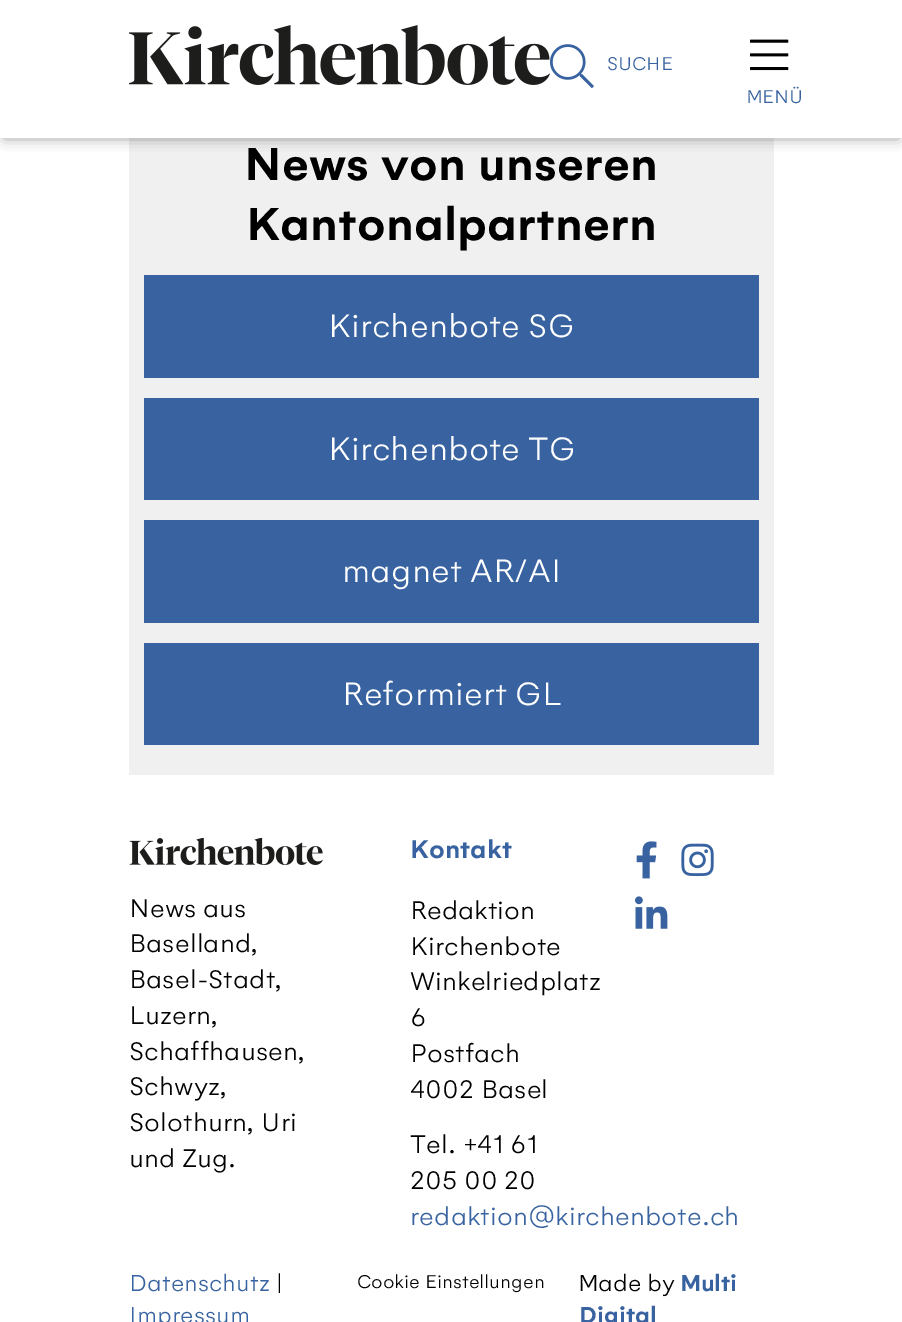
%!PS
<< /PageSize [902 1322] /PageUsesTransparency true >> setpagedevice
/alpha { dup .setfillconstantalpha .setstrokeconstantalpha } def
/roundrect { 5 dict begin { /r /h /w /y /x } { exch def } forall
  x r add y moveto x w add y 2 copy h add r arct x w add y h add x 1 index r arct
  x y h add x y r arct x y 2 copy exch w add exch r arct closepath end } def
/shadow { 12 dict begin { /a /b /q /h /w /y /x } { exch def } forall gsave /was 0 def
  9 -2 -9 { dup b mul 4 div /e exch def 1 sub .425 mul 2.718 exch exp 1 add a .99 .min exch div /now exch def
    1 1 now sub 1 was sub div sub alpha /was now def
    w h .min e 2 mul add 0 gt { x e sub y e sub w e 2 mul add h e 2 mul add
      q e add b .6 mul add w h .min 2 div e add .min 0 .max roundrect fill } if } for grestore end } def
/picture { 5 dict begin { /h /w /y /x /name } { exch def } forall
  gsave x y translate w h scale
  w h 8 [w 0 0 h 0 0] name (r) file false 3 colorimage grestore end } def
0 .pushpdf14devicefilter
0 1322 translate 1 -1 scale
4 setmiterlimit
1 setgray
0 0 902 1322 rectfill
0.941 setgray
129 138 645 637 rectfill
0 setgray
5 9 893 127 0 7 0.55 shadow
1 setgray
0 0 902 138 rectfill
(img1.rgb) 129 25 421 60 picture
(img2.rgb) 550 44 44 44 picture
/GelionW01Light-Light [20 0 0 -20 0 0] selectfont
0.22 0.388 0.627 setrgbcolor
607 70 moveto (SUCHE) show
(img3.rgb) 750 39 39 32 picture
747 103 moveto (MENÜ) show
/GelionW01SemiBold-SemiBold [50 0 0 -50 0 0] selectfont
0 setgray
244 180 moveto (News von unseren) show
246 240 moveto (Kantonalpartnern) show
0.22 0.388 0.627 setrgbcolor
144 275 615 103 rectfill
/GelionW01Light-Light [35 0 0 -35 0 0] selectfont
1 setgray
328 337 moveto (Kirchenbote SG) show
0.22 0.388 0.627 setrgbcolor
144 398 615 102 rectfill
1 setgray
328 460 moveto (Kirchenbote TG) show
0.22 0.388 0.627 setrgbcolor
144 520 615 103 rectfill
1 setgray
342 582 moveto (magnet AR/AI) show
0.22 0.388 0.627 setrgbcolor
144 643 615 102 rectfill
1 setgray
342 705 moveto (Reformiert GL) show
/GelionW01SemiBold-SemiBold [27.5 0 0 -27.5 0 0] selectfont
0.22 0.388 0.627 setrgbcolor
410 858 moveto (Kontakt) show
/GelionW01Light-Light [27.5 0 0 -27.5 0 0] selectfont
0 setgray
410 919 moveto (Redaktion) show
410 955 moveto (Kirchenbote) show
410 990 moveto (Winkelriedplatz) show
410 1026 moveto (6) show
410 1062 moveto (Postfach) show
410 1098 moveto (4002 Basel) show
410 1153 moveto (Tel. +41 61) show
410 1189 moveto (205 00 20) show
0.22 0.388 0.627 setrgbcolor
410 1225 moveto (redaktion@kirchenbote.ch) show
(img4.rgb) 636 841 21 38 picture
(img5.rgb) 681 843 33 34 picture
(img6.rgb) 635 896 33 33 picture
(img7.rgb) 129 838 194 27 picture
0 setgray
129 917 moveto (News aus) show
129 952 moveto (Baselland,) show
129 988 moveto (Basel-Stadt,) show
129 1024 moveto (Luzern,) show
129 1060 moveto (Schaffhausen,) show
129 1095 moveto (Schwyz,) show
129 1131 moveto (Solothurn, Uri) show
129 1167 moveto (und Zug.) show
/GelionW01Light-Light [25 0 0 -25 0 0] selectfont
0.22 0.388 0.627 setrgbcolor
129 1291 moveto (Datenschutz) show
0 setgray
276 1291 moveto (|) show
0.22 0.388 0.627 setrgbcolor
129 1323 moveto (Impressum) show
/GelionW01Light-Light [20 0 0 -20 0 0] selectfont
0 setgray
357 1288 moveto (Cookie Einstellungen) show
/GelionW01Light-Light [25 0 0 -25 0 0] selectfont
579 1291 moveto (Made by) show
/GelionW01SemiBold-SemiBold [25 0 0 -25 0 0] selectfont
0.22 0.388 0.627 setrgbcolor
681 1291 moveto (Multi) show
579 1323 moveto (Digital) show
.poppdf14devicefilter showpage
